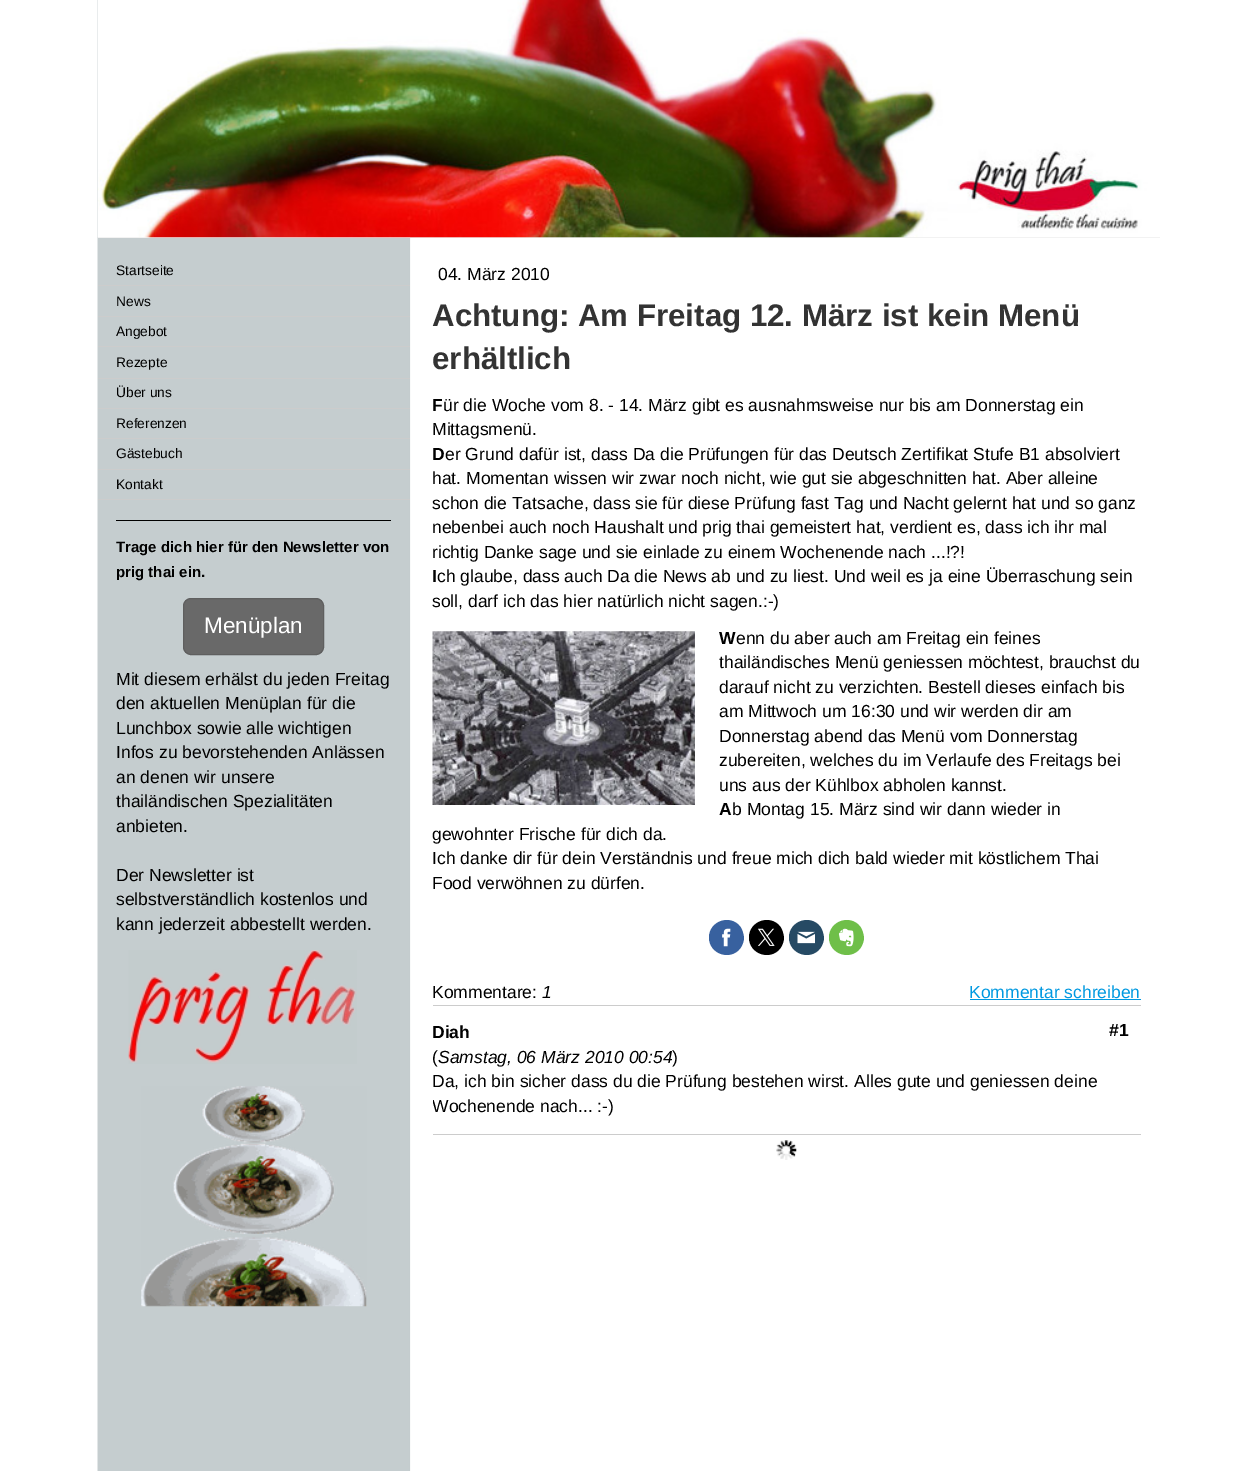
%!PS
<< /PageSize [1256 1471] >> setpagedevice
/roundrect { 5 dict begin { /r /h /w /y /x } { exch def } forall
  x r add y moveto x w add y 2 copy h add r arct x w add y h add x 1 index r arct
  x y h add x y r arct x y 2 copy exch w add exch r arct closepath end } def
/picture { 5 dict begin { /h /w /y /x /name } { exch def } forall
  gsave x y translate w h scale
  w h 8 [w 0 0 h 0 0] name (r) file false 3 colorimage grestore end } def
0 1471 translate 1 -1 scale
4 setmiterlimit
1 setgray
0 0 1256 1471 rectfill
(img1.rgb) 97 0 314 1471 picture
0.933 setgray
98 237 1062 1 rectfill
(img2.rgb) 97 0 1063 238 picture
0.769 0.8 0.808 setrgbcolor
409 238 1 261 rectfill
0.8 setgray
98 285 312 1 rectfill
/LiberationSans-Regular [13.75 0 0 -13.75 0 0] selectfont
0 setgray
116 275 moveto (Startseite) show
0.8 setgray
98 316 312 1 rectfill
0 setgray
116 306 moveto (News) show
0.8 setgray
98 346 312 1 rectfill
0 setgray
116 336 moveto (Angebot) show
0.8 setgray
98 378 312 1 rectfill
0 setgray
116 367 moveto (Rezepte) show
0.8 setgray
98 408 312 1 rectfill
0 setgray
116 397 moveto (Über uns) show
0.8 setgray
98 438 312 1 rectfill
0 setgray
116 428 moveto (Referenzen) show
0.8 setgray
98 469 312 1 rectfill
0 setgray
116 458 moveto (Gästebuch) show
0.8 setgray
98 499 312 1 rectfill
0 setgray
116 489 moveto (Kontakt) show
/LiberationSans-Regular [17.5 0 0 -17.5 0 0] selectfont
438 280 moveto (04. März 2010) show
/LiberationSans-Bold [31.25 0 0 -31.25 0 0] selectfont
0.2 setgray
432 326 moveto (Achtung: Am Freitag 12. März ist kein Menü) show
432 369 moveto (erhältlich) show
/LiberationSans-Bold [17.5 0 0 -17.5 0 0] selectfont
0 setgray
432 411 moveto (F) show
/LiberationSans-Regular [17.5 0 0 -17.5 0 0] selectfont
443 411 moveto (ür die Woche vom 8. - 14. März gibt es ausnahmsweise nur bis am Donnerstag ein) show
432 435 moveto (Mittagsmenü.) show
/LiberationSans-Bold [17.5 0 0 -17.5 0 0] selectfont
432 460 moveto (D) show
/LiberationSans-Regular [17.5 0 0 -17.5 0 0] selectfont
445 460 moveto (er Grund dafür ist, dass Da die Prüfungen für das Deutsch Zertifikat Stufe B1 absolviert) show
432 484 moveto (hat. Momentan wissen wir zwar noch nicht, wie gut sie abgeschnitten hat. Aber alleine) show
432 509 moveto (schon die Tatsache, dass sie für diese Prüfung fast Tag und Nacht gelernt hat und so ganz) show
432 533 moveto (nebenbei auch noch Haushalt und prig thai gemeistert hat, verdient es, dass ich ihr mal) show
432 558 moveto (richtig Danke sage und sie einlade zu einem Wochenende nach ...!?!) show
/LiberationSans-Bold [17.5 0 0 -17.5 0 0] selectfont
432 582 moveto (I) show
/LiberationSans-Regular [17.5 0 0 -17.5 0 0] selectfont
437 582 moveto (ch glaube, dass auch Da die News ab und zu liest. Und weil es ja eine Überraschung sein) show
432 607 moveto (soll, darf ich das hier natürlich nicht sagen.:-\)) show
/LiberationSans-Bold [17.5 0 0 -17.5 0 0] selectfont
719 644 moveto (W) show
/LiberationSans-Regular [17.5 0 0 -17.5 0 0] selectfont
736 644 moveto (enn du aber auch am Freitag ein feines) show
719 668 moveto (thailändisches Menü geniessen möchtest, brauchst du) show
719 693 moveto (darauf nicht zu verzichten. Bestell dieses einfach bis) show
719 717 moveto (am Mittwoch um 16:30 und wir werden dir am) show
719 742 moveto (Donnerstag abend das Menü vom Donnerstag) show
719 766 moveto (zubereiten, welches du im Verlaufe des Freitags bei) show
719 791 moveto (uns aus der Kühlbox abholen kannst.) show
/LiberationSans-Bold [17.5 0 0 -17.5 0 0] selectfont
719 815 moveto (A) show
/LiberationSans-Regular [17.5 0 0 -17.5 0 0] selectfont
732 815 moveto (b Montag 15. März sind wir dann wieder in) show
432 840 moveto (gewohnter Frische für dich da.) show
432 864 moveto (Ich danke dir für dein Verständnis und freue mich dich bald wieder mit köstlichem Thai) show
432 889 moveto (Food verwöhnen zu dürfen.) show
(img3.rgb) 432 631 263 174 picture
0.22 0.38 0.624 setrgbcolor
newpath 709 937.5 moveto 709 954 730.5 961.5 740.5 948 curveto 742.5 945 744 941 744 937.5 curveto 743.5 934 742.5 930 740.5 927 curveto 730.5 913.5 709 921 709 937.5 curveto closepath fill
(img4.rgb) 722 928 9 19 picture
0 setgray
newpath 749 937.5 moveto 749 954 770.5 961.5 780.5 948 curveto 782.5 945 784 941 784 937.5 curveto 783.5 934 782.5 930 780.5 927 curveto 770.5 913.5 749 921 749 937.5 curveto closepath fill
(img5.rgb) 758 928 17 18 picture
0.149 0.29 0.392 setrgbcolor
newpath 789 937.5 moveto 789 954 810.5 961.5 820.5 948 curveto 822.5 945 824 941 824 937.5 curveto 823.5 934 822.5 930 820.5 927 curveto 810.5 913.5 789 921 789 937.5 curveto closepath fill
(img6.rgb) 797 931 18 13 picture
0.435 0.749 0.286 setrgbcolor
newpath 829 937.5 moveto 829 954 850.5 961.5 860.5 948 curveto 862.5 945 864 941 864 937.5 curveto 863.5 934 862.5 930 860.5 927 curveto 850.5 913.5 829 921 829 937.5 curveto closepath fill
(img7.rgb) 838 928 16 19 picture
0 setgray
432 998 moveto (Kommentare:) show
/LiberationSans-Italic [17.5 0 0 -17.5 0 0] selectfont
542 998 moveto (1) show
/LiberationSans-Regular [17.5 0 0 -17.5 0 0] selectfont
0 0.6 0.882 setrgbcolor
969 998 moveto (Kommentar schreiben) show
970 999 171 1 rectfill
0.8 setgray
433 1005 708 1 rectfill
/LiberationSans-Bold [17.5 0 0 -17.5 0 0] selectfont
0 setgray
432 1038 moveto (Diah) show
/LiberationSans-Regular [17.5 0 0 -17.5 0 0] selectfont
432 1063 moveto (\() show
/LiberationSans-Italic [17.5 0 0 -17.5 0 0] selectfont
438 1063 moveto (Samstag, 06 März 2010 00:54) show
/LiberationSans-Regular [17.5 0 0 -17.5 0 0] selectfont
672 1063 moveto (\)) show
/LiberationSans-Bold [17.5 0 0 -17.5 0 0] selectfont
1109 1036 moveto (#1) show
/LiberationSans-Regular [17.5 0 0 -17.5 0 0] selectfont
432 1087 moveto (Da, ich bin sicher dass du die Prüfung bestehen wirst. Alles gute und geniessen deine) show
gsave
433 1006 708 128 rectclip
432 1112 moveto (Wochenende nach... :-\)) show
grestore
(img8.rgb) 776 1140 21 20 picture
0.8 setgray
433 1134 708 1 rectfill
0.769 0.8 0.808 setrgbcolor
409 500 1 971 rectfill
0 setgray
116 520 275 1 rectfill
/LiberationSans-Bold [15 0 0 -15 0 0] selectfont
116 552 moveto (Trage dich hier für den Newsletter von) show
116 577 moveto (prig thai ein.) show
0.412 setgray
183.5 598.5 140 56 7.5 roundrect gsave fill grestore
0.373 setgray
stroke
/LiberationSans-Regular [22.5 0 0 -22.5 0 0] selectfont
1 setgray
204 633 moveto (Menüplan) show
/LiberationSans-Regular [17.5 0 0 -17.5 0 0] selectfont
0 setgray
116 685 moveto (Mit diesem erhälst du jeden Freitag) show
116 709 moveto (den aktuellen Menüplan für die) show
116 734 moveto (Lunchbox sowie alle wichtigen) show
116 758 moveto (Infos zu bevorstehenden Anlässen) show
116 783 moveto (an denen wir unsere) show
116 807 moveto (thailändischen Spezialitäten) show
116 832 moveto (anbieten.) show
116 881 moveto (Der Newsletter ist) show
116 905 moveto (selbstverständlich kostenlos und) show
116 930 moveto (kann jederzeit abbestellt werden.) show
(img9.rgb) 128 950 229 114 picture
(img10.rgb) 141 1086 226 221 picture
showpage
